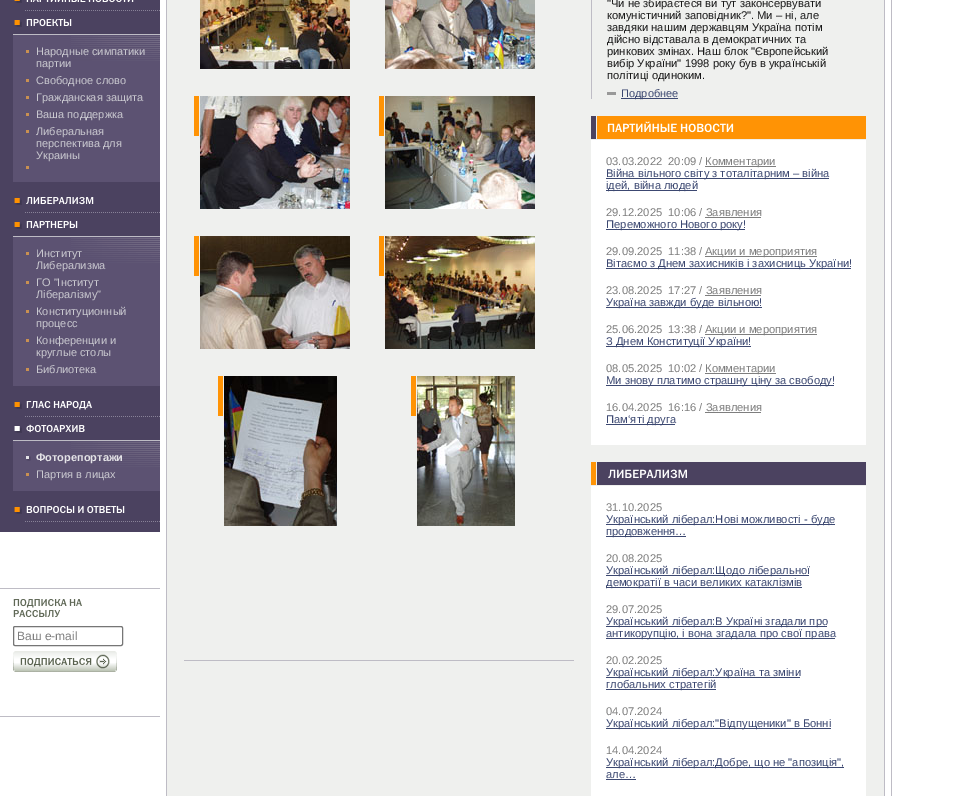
%!PS
<< /PageSize [959 796] >> setpagedevice
/roundrect { 5 dict begin { /r /h /w /y /x } { exch def } forall
  x r add y moveto x w add y 2 copy h add r arct x w add y h add x 1 index r arct
  x y h add x y r arct x y 2 copy exch w add exch r arct closepath end } def
/picture { 5 dict begin { /h /w /y /x /name } { exch def } forall
  gsave x y translate w h scale
  w h 8 [w 0 0 h 0 0] name (r) file false 3 colorimage grestore end } def
0 796 translate 1 -1 scale
4 setmiterlimit
1 setgray
0 0 959 796 rectfill
0.937 0.941 0.933 setrgbcolor
167 0 717 796 rectfill
0.745 0.737 0.773 setrgbcolor
166 0 1 796 rectfill
(img1.rgb) 200 0 150 69 picture
(img2.rgb) 385 0 150 69 picture
1 0.576 0.02 setrgbcolor
194 96 5 40 rectfill
(img3.rgb) 200 96 150 113 picture
379 96 5 40 rectfill
(img4.rgb) 385 96 150 113 picture
194 236 5 40 rectfill
(img5.rgb) 200 236 150 113 picture
379 236 5 40 rectfill
(img6.rgb) 385 236 150 113 picture
218 376 5 40 rectfill
(img7.rgb) 224 376 113 150 picture
411 376 5 40 rectfill
(img8.rgb) 417 376 98 150 picture
0.745 0.737 0.773 setrgbcolor
184 660 390 1 rectfill
0.294 0.259 0.376 setrgbcolor
0 0 160 532 rectfill
(img9.rgb) 14 0 8 3 picture
(img10.rgb) 26 0 108 3 picture
(img11.rgb) 25 10 135 1 picture
(img12.rgb) 14 20 8 7 picture
(img13.rgb) 26 18 46 9 picture
0.745 0.737 0.773 setrgbcolor
13 34 147 1 rectfill
0.361 0.322 0.447 setrgbcolor
13 35 147 147 rectfill
(img14.rgb) 71 36 89 25 picture
0.788 0.565 0.318 setrgbcolor
26 50 3 3 rectfill
/LiberationSans-Regular [11 0 0 -11 0 0] selectfont
0.792 0.788 0.816 setrgbcolor
36 55 moveto (Народные симпатики) show
36 67 moveto (партии) show
0.788 0.565 0.318 setrgbcolor
26 79 3 3 rectfill
0.792 0.788 0.816 setrgbcolor
36 84 moveto (Свободное слово) show
0.788 0.565 0.318 setrgbcolor
26 96 3 3 rectfill
0.792 0.788 0.816 setrgbcolor
36 101 moveto (Гражданская защита) show
0.788 0.565 0.318 setrgbcolor
26 113 3 3 rectfill
0.792 0.788 0.816 setrgbcolor
36 118 moveto (Ваша поддержка) show
0.788 0.565 0.318 setrgbcolor
26 130 3 3 rectfill
0.792 0.788 0.816 setrgbcolor
36 135 moveto (Либеральная) show
36 147 moveto (перспектива для) show
36 159 moveto (Украины) show
0.788 0.565 0.318 setrgbcolor
26 166 3 3 rectfill
(img12.rgb) 14 198 8 7 picture
(img15.rgb) 26 197 68 8 picture
(img11.rgb) 25 212 135 1 picture
(img12.rgb) 14 222 8 7 picture
(img16.rgb) 26 221 52 7 picture
0.745 0.737 0.773 setrgbcolor
13 236 147 1 rectfill
0.361 0.322 0.447 setrgbcolor
13 237 147 149 rectfill
(img14.rgb) 71 238 89 25 picture
0.788 0.565 0.318 setrgbcolor
26 252 3 3 rectfill
0.792 0.788 0.816 setrgbcolor
36 257 moveto (Институт) show
36 269 moveto (Либерализма) show
0.788 0.565 0.318 setrgbcolor
26 281 3 3 rectfill
0.792 0.788 0.816 setrgbcolor
36 286 moveto (ГO "Інститут) show
36 298 moveto (Лібералізму") show
0.788 0.565 0.318 setrgbcolor
26 310 3 3 rectfill
0.792 0.788 0.816 setrgbcolor
36 315 moveto (Конституционный) show
36 327 moveto (процесс) show
0.788 0.565 0.318 setrgbcolor
26 339 3 3 rectfill
0.792 0.788 0.816 setrgbcolor
36 344 moveto (Конференции и) show
36 356 moveto (круглые столы) show
0.788 0.565 0.318 setrgbcolor
26 368 3 3 rectfill
0.792 0.788 0.816 setrgbcolor
36 373 moveto (Библиотека) show
(img12.rgb) 14 402 8 7 picture
(img17.rgb) 26 400 66 10 picture
(img11.rgb) 25 416 135 1 picture
(img18.rgb) 14 426 8 7 picture
(img19.rgb) 26 424 59 9 picture
0.745 0.737 0.773 setrgbcolor
13 440 147 1 rectfill
0.361 0.322 0.447 setrgbcolor
13 441 147 50 rectfill
(img14.rgb) 71 442 89 25 picture
(img20.rgb) 26 456 5 5 picture
/LiberationSans-Bold [11 0 0 -11 0 0] selectfont
0.894 0.89 0.906 setrgbcolor
36 461 moveto (Фоторепортажи) show
0.788 0.565 0.318 setrgbcolor
26 473 3 3 rectfill
/LiberationSans-Regular [11 0 0 -11 0 0] selectfont
0.792 0.788 0.816 setrgbcolor
36 478 moveto (Партия в лицах) show
(img12.rgb) 14 507 8 7 picture
(img21.rgb) 26 505 99 9 picture
(img11.rgb) 25 521 135 1 picture
0.745 0.737 0.773 setrgbcolor
0 588 160 1 rectfill
(img22.rgb) 13 599 69 19 picture
0.463 setgray
13.5 626.5 109 19 1.5 roundrect stroke
/LiberationSans-Regular [12 0 0 -12 0 0] selectfont
0.494 setgray
17 640 moveto (Ваш e-mail) show
(img23.rgb) 13 651 104 21 picture
0.745 0.737 0.773 setrgbcolor
0 716 160 1 rectfill
884 0 1 796 rectfill
591 0 1 99 rectfill
/LiberationSans-Regular [11.2 0 0 -11.2 0 0] selectfont
0.098 setgray
607 7 moveto ("Чи не збираєтеся ви тут законсервувати) show
607 19 moveto (комуністичний заповідник?". Ми – ні, але) show
607 31 moveto (завдяки нашим державцям Україна потім) show
607 43 moveto (дійсно відставала в демократичних та) show
607 55 moveto (ринкових змінах. Наш блок "Європейський) show
607 67 moveto (вибір України" 1998 року був в українській) show
607 79 moveto (політиці одиноким.) show
0.6 setgray
607 92 9 3 rectfill
0.235 0.282 0.443 setrgbcolor
621 98 57 1 rectfill
/LiberationSans-Regular [11 0 0 -11 0 0] selectfont
621 97 moveto (Подробнее) show
1 0.576 0.02 setrgbcolor
597 116 269 23 rectfill
(img24.rgb) 591 116 143 23 picture
1 setgray
591 140 275 305 rectfill
/LiberationSans-Regular [11.2 0 0 -11.2 0 0] selectfont
0.494 setgray
606 165 moveto (03.03.2022  20:09 /) show
705 166 71 1 rectfill
705 165 moveto (Комментарии) show
0.235 0.282 0.443 setrgbcolor
606 178 223 1 rectfill
606 177 moveto (Війна вільного світу з тоталітарним – війна) show
606 190 91 1 rectfill
606 189 moveto (ідей, війна людей) show
0.494 setgray
606 216 moveto (29.12.2025  10:06 / Заявления) show
705 217 56 1 rectfill
0.235 0.282 0.443 setrgbcolor
606 229 139 1 rectfill
606 228 moveto (Переможного Нового року!) show
0.494 setgray
606 255 moveto (29.09.2025  11:38 /) show
705 256 112 1 rectfill
705 255 moveto (Акции и мероприятия) show
0.235 0.282 0.443 setrgbcolor
606 268 245 1 rectfill
606 267 moveto (Вітаємо з Днем захисників і захисниць України!) show
0.494 setgray
606 294 moveto (23.08.2025  17:27 / Заявления) show
705 295 56 1 rectfill
0.235 0.282 0.443 setrgbcolor
606 307 156 1 rectfill
606 306 moveto (Україна завжди буде вільною!) show
0.494 setgray
606 333 moveto (25.06.2025  13:38 /) show
705 334 112 1 rectfill
705 333 moveto (Акции и мероприятия) show
0.235 0.282 0.443 setrgbcolor
606 346 145 1 rectfill
606 345 moveto (З Днем Конституції України!) show
0.494 setgray
606 372 moveto (08.05.2025  10:02 /) show
705 373 71 1 rectfill
705 372 moveto (Комментарии) show
0.235 0.282 0.443 setrgbcolor
606 385 228 1 rectfill
606 384 moveto (Ми знову платимо страшну ціну за свободу!) show
0.494 setgray
606 411 moveto (16.04.2025  16:16 / Заявления) show
705 412 56 1 rectfill
0.235 0.282 0.443 setrgbcolor
606 424 69 1 rectfill
606 423 moveto (Пам‘яті друга) show
0.294 0.259 0.376 setrgbcolor
597 462 269 23 rectfill
(img25.rgb) 591 462 96 23 picture
1 setgray
591 486 275 310 rectfill
0.494 setgray
606 511 moveto (31.10.2025) show
0.235 0.282 0.443 setrgbcolor
606 524 229 1 rectfill
606 523 moveto (Український ліберал:Нові можливості - буде) show
606 536 80 1 rectfill
606 535 moveto (продовження…) show
0.494 setgray
606 562 moveto (20.08.2025) show
0.235 0.282 0.443 setrgbcolor
606 575 203 1 rectfill
606 574 moveto (Український ліберал:Щодо ліберальної) show
606 587 196 1 rectfill
606 586 moveto (демократії в часи великих катаклізмів) show
0.494 setgray
606 613 moveto (29.07.2025) show
0.235 0.282 0.443 setrgbcolor
606 626 221 1 rectfill
606 625 moveto (Український ліберал:В Україні згадали про) show
606 638 229 1 rectfill
606 637 moveto (антикорупцію, і вона згадала про свої права) show
0.494 setgray
606 664 moveto (20.02.2025) show
0.235 0.282 0.443 setrgbcolor
606 677 194 1 rectfill
606 676 moveto (Український ліберал:Україна та зміни) show
606 689 110 1 rectfill
606 688 moveto (глобальних стратегій) show
0.494 setgray
606 715 moveto (04.07.2024) show
0.235 0.282 0.443 setrgbcolor
606 728 225 1 rectfill
606 727 moveto (Український ліберал:"Відпущеники" в Бонні) show
0.494 setgray
606 754 moveto (14.04.2024) show
0.235 0.282 0.443 setrgbcolor
606 767 238 1 rectfill
606 766 moveto (Український ліберал:Добре, що не "апозиція",) show
606 778 moveto (але…) show
606 779 30 1 rectfill
0.745 0.737 0.773 setrgbcolor
891 0 1 796 rectfill
showpage
